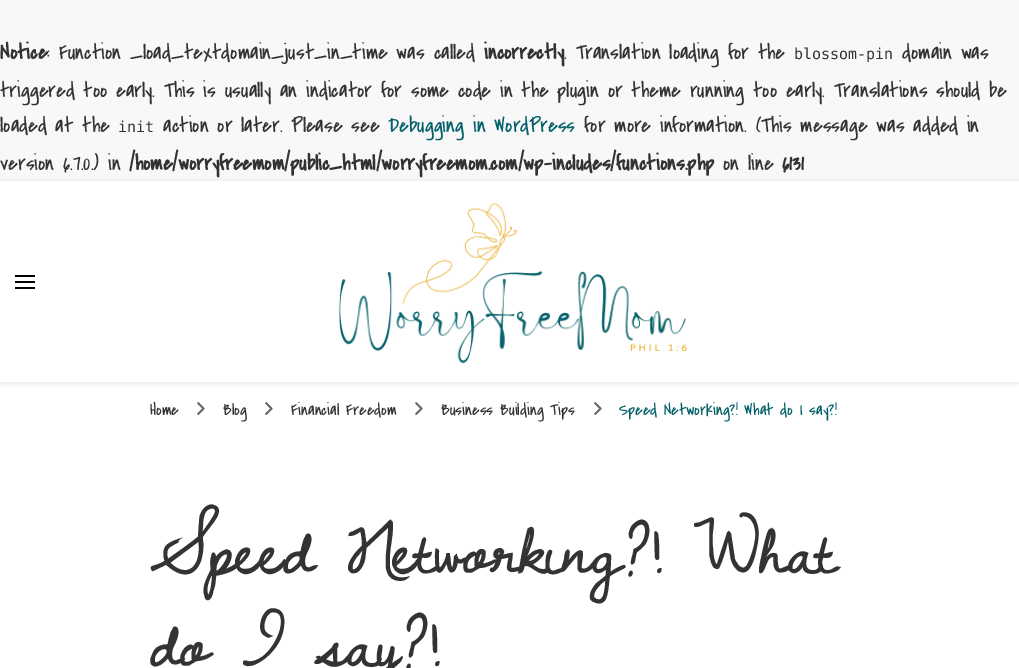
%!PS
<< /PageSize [1019 668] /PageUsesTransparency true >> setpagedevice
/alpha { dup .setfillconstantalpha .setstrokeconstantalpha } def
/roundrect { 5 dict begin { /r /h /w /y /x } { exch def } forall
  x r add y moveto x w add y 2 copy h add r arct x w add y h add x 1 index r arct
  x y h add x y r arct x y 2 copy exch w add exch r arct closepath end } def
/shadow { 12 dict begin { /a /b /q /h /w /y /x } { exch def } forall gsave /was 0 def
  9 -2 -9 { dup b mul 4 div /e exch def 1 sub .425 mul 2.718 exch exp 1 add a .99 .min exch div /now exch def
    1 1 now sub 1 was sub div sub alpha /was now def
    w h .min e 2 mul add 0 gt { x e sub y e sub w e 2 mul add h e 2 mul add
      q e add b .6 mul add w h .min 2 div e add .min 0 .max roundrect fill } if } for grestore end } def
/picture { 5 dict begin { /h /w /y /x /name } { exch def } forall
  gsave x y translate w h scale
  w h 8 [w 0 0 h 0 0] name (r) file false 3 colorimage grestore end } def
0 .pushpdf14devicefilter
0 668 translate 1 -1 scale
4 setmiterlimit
0.973 setgray
0 0 1019 668 rectfill
/CoveredByYourGrace-Bold [22 0 0 -22 0 0] selectfont
0.2 setgray
0 59 moveto (Notice) show
/CoveredByYourGrace-Regular [22 0 0 -22 0 0] selectfont
47 59 moveto (: Function _load_textdomain_just_in_time was called) show
/CoveredByYourGrace-Bold [22 0 0 -22 0 0] selectfont
484 59 moveto (incorrectly) show
/CoveredByYourGrace-Regular [22 0 0 -22 0 0] selectfont
564 59 moveto (. Translation loading for the) show
/DejaVuSansMono-Regular [15 0 0 -15 0 0] selectfont
794 59 moveto (blossom-pin) show
/CoveredByYourGrace-Regular [22 0 0 -22 0 0] selectfont
902 59 moveto (domain was) show
0 97 moveto (triggered too early. This is usually an indicator for some code in the plugin or theme running too early. Translations should be) show
0 132 moveto (loaded at the) show
/DejaVuSansMono-Regular [15 0 0 -15 0 0] selectfont
118 132 moveto (init) show
/CoveredByYourGrace-Regular [22 0 0 -22 0 0] selectfont
163 132 moveto (action or later. Please see) show
0.02 0.38 0.416 setrgbcolor
388 132 moveto (Debugging in WordPress) show
0.2 setgray
584 132 moveto (for more information. \(This message was added in) show
0 170 moveto (version 6.7.0.\) in) show
/CoveredByYourGrace-Bold [22 0 0 -22 0 0] selectfont
129 170 moveto (/home/worryfreemom/public_html/worryfreemom.com/wp-includes/functions.php) show
/CoveredByYourGrace-Regular [22 0 0 -22 0 0] selectfont
723 170 moveto (on line) show
/CoveredByYourGrace-Bold [22 0 0 -22 0 0] selectfont
782 170 moveto (6131) show
1 setgray
0 181 1019 487 rectfill
gsave
newpath 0 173 moveto 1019 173 lineto 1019 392 lineto 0 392 lineto closepath 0 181 moveto 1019 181 lineto 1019 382 lineto 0 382 lineto closepath eoclip newpath
0 setgray
0 182 1019 201 0 2.5 0.1 shadow
grestore
0 setgray
15 275 20 2 rectfill
15 281 20 2 rectfill
15 287 20 2 rectfill
(img1.rgb) 338 203 350 161 picture
/CoveredByYourGrace-Regular [17.1 0 0 -17.1 0 0] selectfont
0.2 setgray
150 415 moveto (Home) show
(img2.rgb) 197 402 8 13 picture
223 415 moveto (Blog) show
(img2.rgb) 265 402 8 13 picture
291 415 moveto (Financial Freedom) show
(img2.rgb) 415 402 8 13 picture
441 415 moveto (Business Building Tips) show
(img2.rgb) 594 402 8 13 picture
0.02 0.38 0.416 setrgbcolor
619 415 moveto (Speed Networking?! What do I say?!) show
/DawningofaNewDay-Bold [74.5 0 0 -74.5 0 0] selectfont
0.2 setgray
150 573 moveto (Speed Networking?! What) show
150 666 moveto (do I say?!) show
.poppdf14devicefilter showpage
